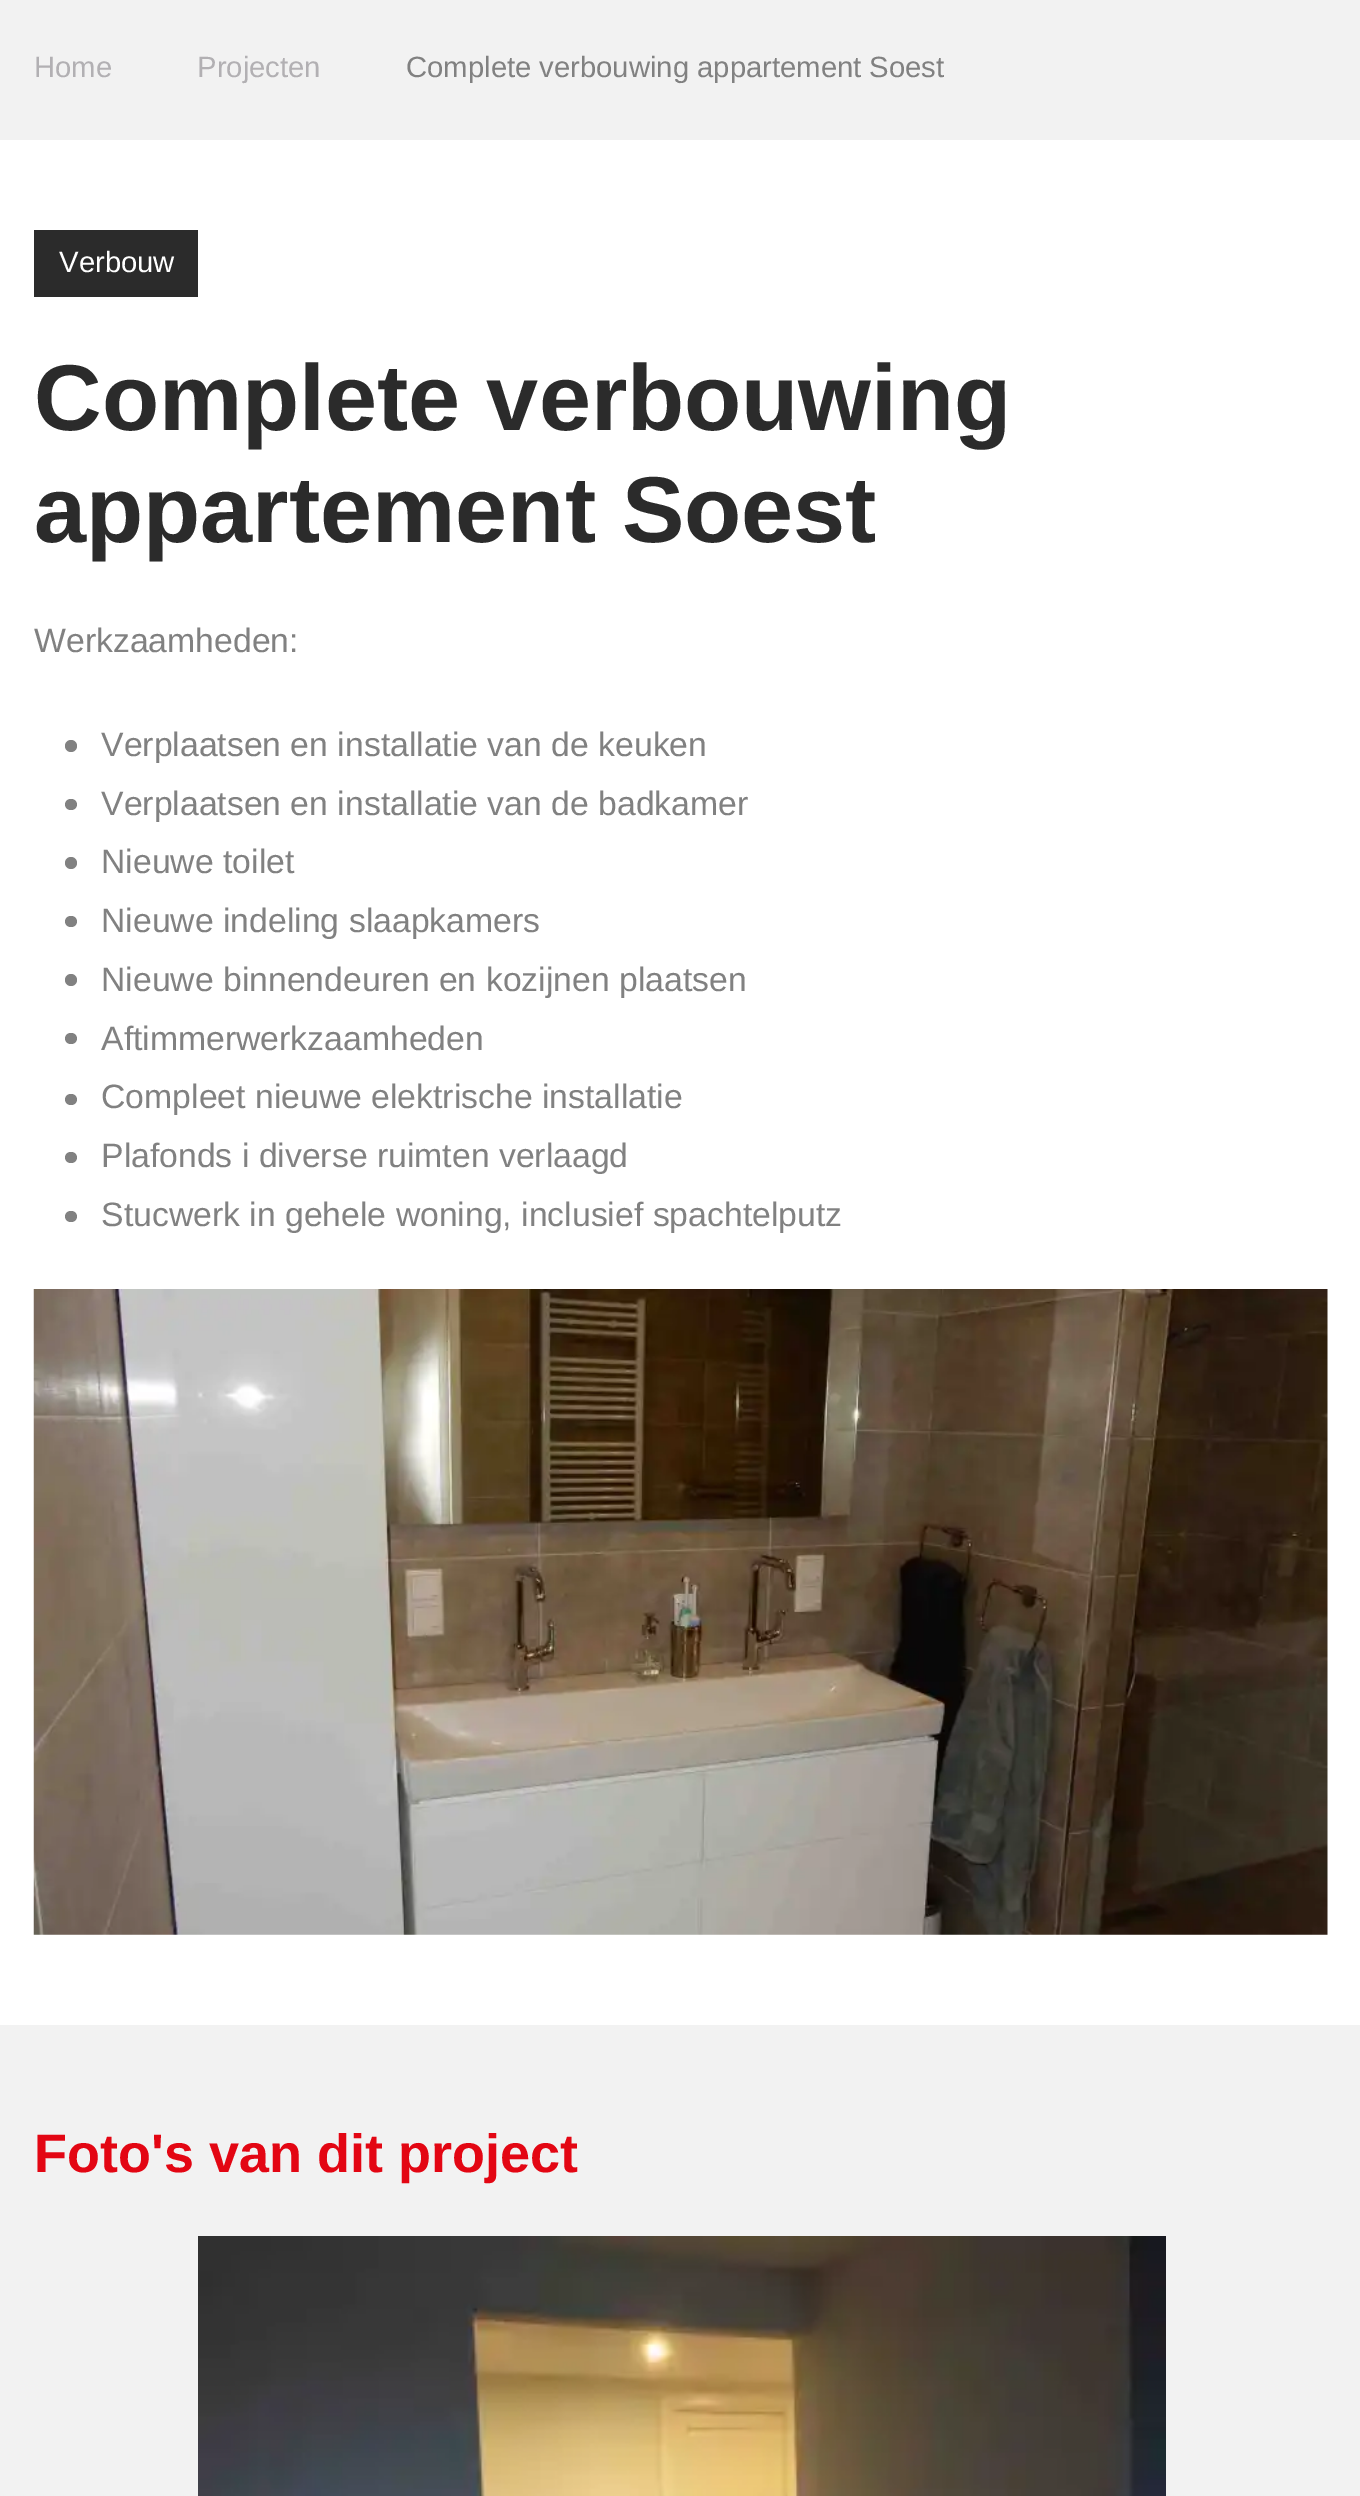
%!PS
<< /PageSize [1360 2496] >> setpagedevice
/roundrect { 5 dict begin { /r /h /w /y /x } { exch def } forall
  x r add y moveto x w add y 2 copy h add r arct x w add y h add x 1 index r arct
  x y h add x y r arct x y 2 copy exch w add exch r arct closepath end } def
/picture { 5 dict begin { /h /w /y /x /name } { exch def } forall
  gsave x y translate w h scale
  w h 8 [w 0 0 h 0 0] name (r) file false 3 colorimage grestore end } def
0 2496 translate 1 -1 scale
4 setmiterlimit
1 setgray
0 0 1360 2496 rectfill
0.949 setgray
0 0 1360 140 rectfill
/Arimo-Regular [29.25 0 0 -29.25 0 0] selectfont
0.698 0.69 0.702 setrgbcolor
34 77 moveto (Home) show
197 77 moveto (Projecten) show
0.506 setgray
406 77 moveto (Complete verbouwing appartement Soest) show
0.169 setgray
34 230 164 67 rectfill
1 setgray
59 272 moveto (Verbouw) show
/Arimo-Bold [93.6 0 0 -93.6 0 0] selectfont
0.169 setgray
34 430 moveto (Complete verbouwing) show
34 542 moveto (appartement Soest) show
/Arimo-Regular [33.75 0 0 -33.75 0 0] selectfont
0.506 setgray
34 652 moveto (Werkzaamheden:) show
newpath 71 746 6 0 360 arc closepath fill
101 756 moveto (Verplaatsen en installatie van de keuken) show
65 799 12 11 5.5 roundrect fill
101 815 moveto (Verplaatsen en installatie van de badkamer) show
newpath 71 863 6 0 360 arc closepath fill
101 873 moveto (Nieuwe toilet) show
65 916 12 11 5.5 roundrect fill
101 932 moveto (Nieuwe indeling slaapkamers) show
newpath 71 980 6 0 360 arc closepath fill
101 991 moveto (Nieuwe binnendeuren en kozijnen plaatsen) show
65 1033 12 11 5.5 roundrect fill
101 1050 moveto (Aftimmerwerkzaamheden) show
65 1094 12 11 5.5 roundrect fill
101 1108 moveto (Compleet nieuwe elektrische installatie) show
65 1152 12 11 5.5 roundrect fill
101 1167 moveto (Plafonds i diverse ruimten verlaagd) show
65 1211 12 11 5.5 roundrect fill
101 1226 moveto (Stucwerk in gehele woning, inclusief spachtelputz) show
(img1.rgb) 33 1289 1295 646 picture
0.949 setgray
0 2025 1360 471 rectfill
/Arimo-Bold [54 0 0 -54 0 0] selectfont
0.89 0.024 0.075 setrgbcolor
34 2172 moveto (Foto's van dit project) show
(img2.rgb) 198 2236 968 260 picture
showpage
